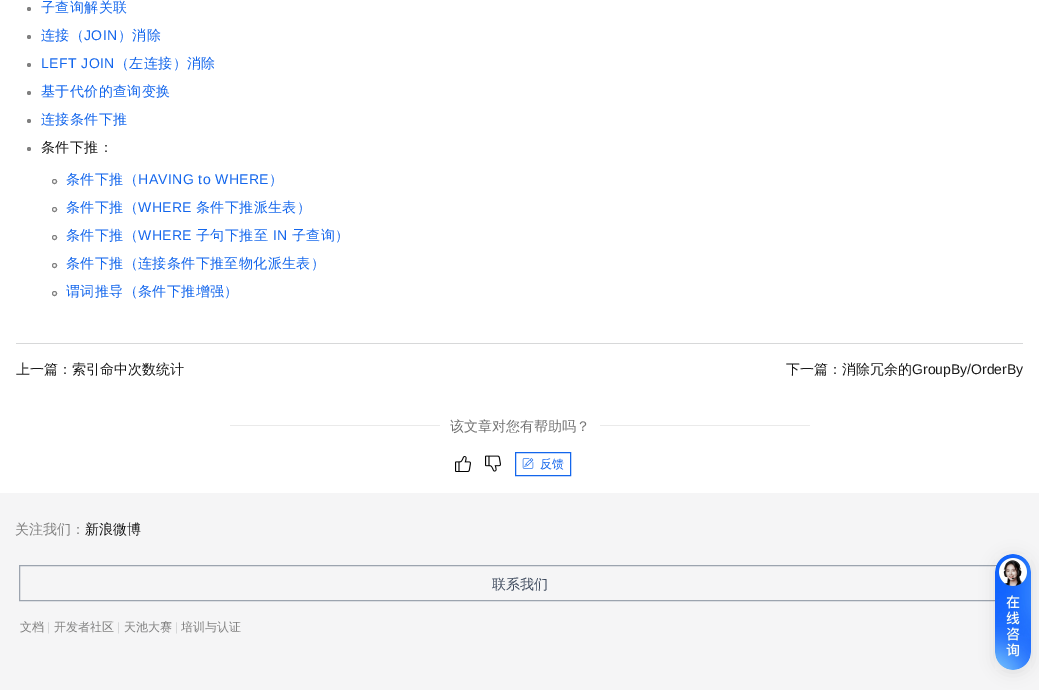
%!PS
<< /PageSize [1039 690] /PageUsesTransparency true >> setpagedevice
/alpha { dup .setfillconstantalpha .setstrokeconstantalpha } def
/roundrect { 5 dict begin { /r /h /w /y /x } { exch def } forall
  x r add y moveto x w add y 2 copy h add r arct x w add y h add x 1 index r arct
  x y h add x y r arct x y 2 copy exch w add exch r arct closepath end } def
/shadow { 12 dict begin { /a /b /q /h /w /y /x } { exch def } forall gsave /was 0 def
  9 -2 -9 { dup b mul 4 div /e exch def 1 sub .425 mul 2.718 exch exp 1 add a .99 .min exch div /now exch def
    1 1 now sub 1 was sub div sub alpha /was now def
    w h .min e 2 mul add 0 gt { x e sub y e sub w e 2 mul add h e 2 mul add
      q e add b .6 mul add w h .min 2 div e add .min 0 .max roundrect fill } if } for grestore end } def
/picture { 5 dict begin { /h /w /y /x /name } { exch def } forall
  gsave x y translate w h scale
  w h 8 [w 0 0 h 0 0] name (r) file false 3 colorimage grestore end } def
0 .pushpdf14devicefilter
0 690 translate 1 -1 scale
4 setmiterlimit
1 setgray
0 0 1039 690 rectfill
0.502 setgray
newpath 29 9 2 0 360 arc closepath fill
/WenQuanYiZenHei-Medium [14 0 0 -14 0 0] selectfont
0.075 0.4 0.925 setrgbcolor
41 12 moveto 0.4 0 (子查询解关联) ashow
0.502 setgray
newpath 29 37 2 0 360 arc closepath fill
0.075 0.4 0.925 setrgbcolor
41 40 moveto 0.4 0 (连接（) ashow
/LiberationSans-Regular [14 0 0 -14 0 0] selectfont
84 40 moveto 0.4 0 (JOIN) ashow
/WenQuanYiZenHei-Medium [14 0 0 -14 0 0] selectfont
118 40 moveto 0.4 0 (）消除) ashow
0.502 setgray
newpath 29 65 2 0 360 arc closepath fill
/LiberationSans-Regular [14 0 0 -14 0 0] selectfont
0.075 0.4 0.925 setrgbcolor
41 68 moveto 0.4 0 (LEFT JOIN) ashow
/WenQuanYiZenHei-Medium [14 0 0 -14 0 0] selectfont
115 68 moveto 0.4 0 (（左连接）消除) ashow
0.502 setgray
newpath 29 93 2 0 360 arc closepath fill
0.075 0.4 0.925 setrgbcolor
41 96 moveto 0.4 0 (基于代价的查询变换) ashow
0.502 setgray
newpath 29 121 2 0 360 arc closepath fill
0.075 0.4 0.925 setrgbcolor
41 124 moveto 0.4 0 (连接条件下推) ashow
0.502 setgray
newpath 29 149 2 0 360 arc closepath fill
0.094 setgray
41 152 moveto 0.4 0 (条件下推：) ashow
0.502 setgray
newpath 54.5 181.5 2 0 360 arc closepath stroke
0.075 0.4 0.925 setrgbcolor
66 184 moveto 0.4 0 (条件下推（) ashow
/LiberationSans-Regular [14 0 0 -14 0 0] selectfont
138 184 moveto 0.4 0 (HAVING to WHERE) ashow
/WenQuanYiZenHei-Medium [14 0 0 -14 0 0] selectfont
269 184 moveto 0.4 0 (）) ashow
0.502 setgray
newpath 54.5 209.5 2 0 360 arc closepath stroke
0.075 0.4 0.925 setrgbcolor
66 212 moveto 0.4 0 (条件下推（) ashow
/LiberationSans-Regular [14 0 0 -14 0 0] selectfont
138 212 moveto 0.4 0 (WHERE) ashow
/WenQuanYiZenHei-Medium [14 0 0 -14 0 0] selectfont
196 212 moveto 0.4 0 (条件下推派生表）) ashow
0.502 setgray
newpath 54.5 237.5 2 0 360 arc closepath stroke
0.075 0.4 0.925 setrgbcolor
66 240 moveto 0.4 0 (条件下推（) ashow
/LiberationSans-Regular [14 0 0 -14 0 0] selectfont
138 240 moveto 0.4 0 (WHERE) ashow
/WenQuanYiZenHei-Medium [14 0 0 -14 0 0] selectfont
196 240 moveto 0.4 0 (子句下推至) ashow
/LiberationSans-Regular [14 0 0 -14 0 0] selectfont
273 240 moveto 0.4 0 (IN) ashow
/WenQuanYiZenHei-Medium [14 0 0 -14 0 0] selectfont
292 240 moveto 0.4 0 (子查询）) ashow
0.502 setgray
newpath 54.5 265.5 2 0 360 arc closepath stroke
0.075 0.4 0.925 setrgbcolor
66 268 moveto 0.4 0 (条件下推（连接条件下推至物化派生表）) ashow
0.502 setgray
newpath 54.5 293.5 2 0 360 arc closepath stroke
0.075 0.4 0.925 setrgbcolor
66 296 moveto 0.4 0 (谓词推导（条件下推增强）) ashow
0.843 0.847 0.851 setrgbcolor
16 343 1007 1 rectfill
0.094 setgray
16 374 moveto (上一篇：索引命中次数统计) show
786 374 moveto (下一篇：消除冗余的) show
/LiberationSans-Regular [14 0 0 -14 0 0] selectfont
912 374 moveto (GroupBy/OrderBy) show
0.918 setgray
230 425 210 1 rectfill
/WenQuanYiZenHei-Medium [14 0 0 -14 0 0] selectfont
0.443 setgray
450 431 moveto (该文章对您有帮助吗？) show
0.918 setgray
600 425 210 1 rectfill
(img1.rgb) 455 456 16 16 picture
(img2.rgb) 485 455 16 17 picture
0.075 0.4 0.925 setrgbcolor
515.5 452.5 55 23 rectstroke
(img3.rgb) 522 458 12 11 picture
/WenQuanYiZenHei-Medium [12 0 0 -12 0 0] selectfont
540 468 moveto (反馈) show
0.961 0.961 0.965 setrgbcolor
0 493 1039 197 rectfill
/WenQuanYiZenHei-Medium [14 0 0 -14 0 0] selectfont
0.502 setgray
15 534 moveto (关注我们：) show
0.094 setgray
85 534 moveto (新浪微博) show
0.612 0.643 0.686 setrgbcolor
19.5 565.5 1000 35 rectstroke
0.239 0.286 0.361 setrgbcolor
492 589 moveto (联系我们) show
/WenQuanYiZenHei-Medium [12 0 0 -12 0 0] selectfont
0.502 setgray
20 631 moveto (文档) show
/LiberationSans-Regular [12 0 0 -12 0 0] selectfont
0.843 0.847 0.851 setrgbcolor
47 631 moveto (|) show
/WenQuanYiZenHei-Medium [12 0 0 -12 0 0] selectfont
0.502 setgray
54 631 moveto (开发者社区) show
/LiberationSans-Regular [12 0 0 -12 0 0] selectfont
0.843 0.847 0.851 setrgbcolor
117 631 moveto (|) show
/WenQuanYiZenHei-Medium [12 0 0 -12 0 0] selectfont
0.502 setgray
124 631 moveto (天池大赛) show
/LiberationSans-Regular [12 0 0 -12 0 0] selectfont
0.843 0.847 0.851 setrgbcolor
175 631 moveto (|) show
/WenQuanYiZenHei-Medium [12 0 0 -12 0 0] selectfont
0.502 setgray
181 631 moveto (培训与认证) show
0 setgray
995 556 36 116 18 7.5 0.1 shadow
(img4.rgb) 995 554 36 116 picture
.poppdf14devicefilter showpage
